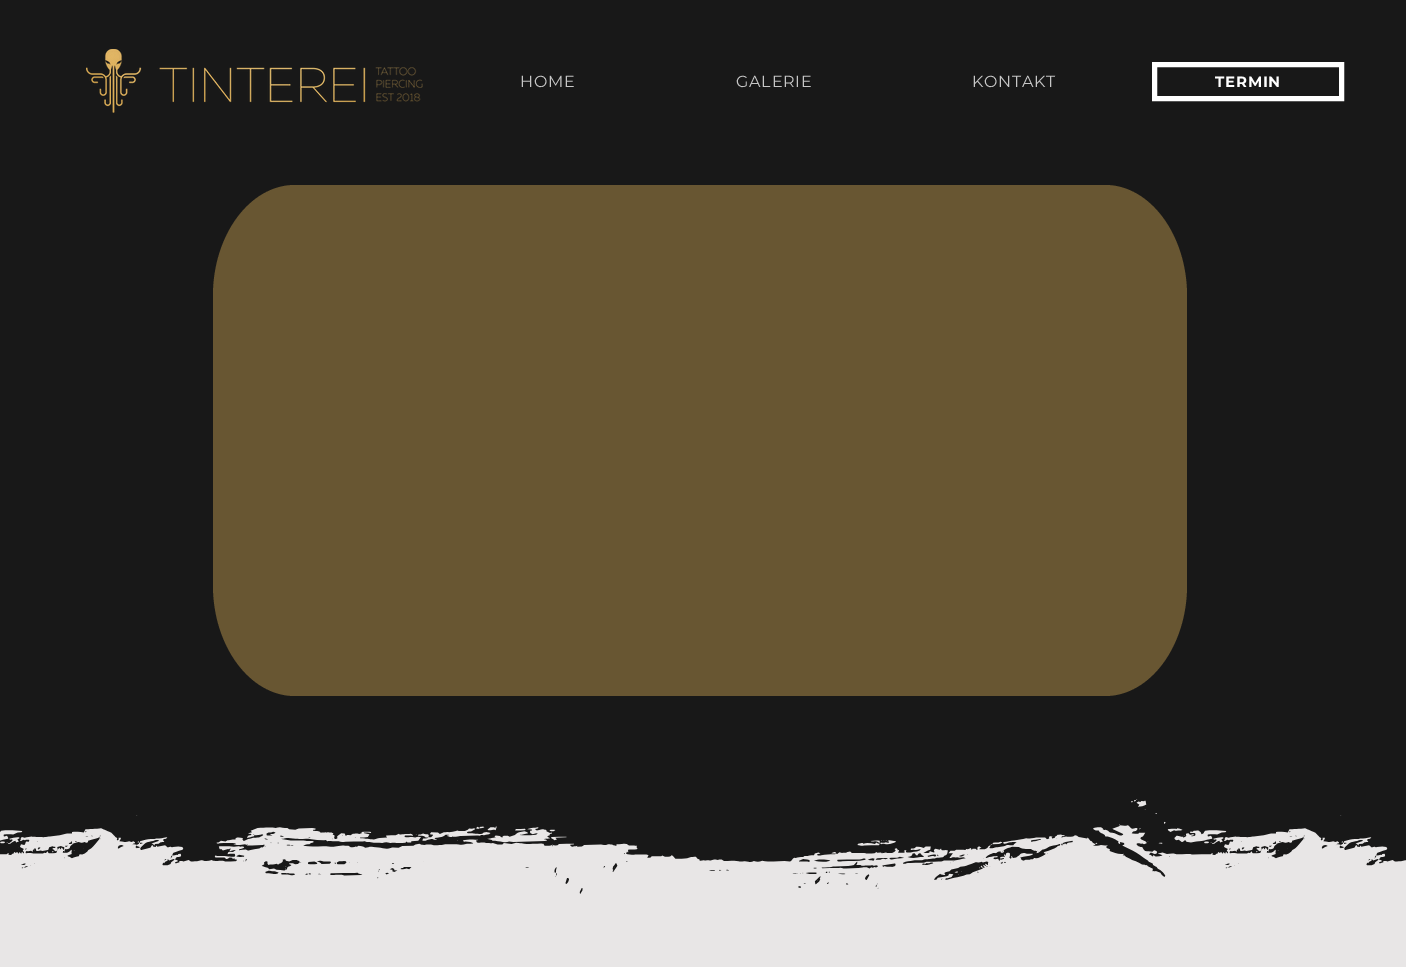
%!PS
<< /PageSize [1406 967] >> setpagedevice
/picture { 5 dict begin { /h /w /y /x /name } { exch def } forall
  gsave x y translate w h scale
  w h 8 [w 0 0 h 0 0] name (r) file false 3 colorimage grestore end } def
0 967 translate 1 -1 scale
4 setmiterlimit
0.094 setgray
0 0 1406 967 rectfill
(img1.rgb) 86 49 337 64 picture
/Montserrat-Regular [16 0 0 -16 0 0] selectfont
0.78 setgray
520 87 moveto 0.75 0 (HOME) ashow
736 87 moveto 0.75 0 (GALERIE) ashow
972 87 moveto 0.75 0 (KONTAKT) ashow
1 setgray
5 setlinewidth
1154.5 64.5 187 34 rectstroke
/Montserrat-Bold [15 0 0 -15 0 0] selectfont
1215 87 moveto 0.75 0 (TERMIN) ashow
0.408 0.337 0.196 setrgbcolor
newpath 1105 696 moveto 295 696 lineto 250 696 213 646 213 585 curveto 213 296 lineto 213 235 250 185 295 185 curveto 1105 185 lineto 1150 185 1187 235 1187 296 curveto 1187 585 lineto 1187 646 1150 696 1105 696 curveto closepath fill
0.91 0.902 0.902 setrgbcolor
0 799 1406 168 rectfill
(img2.rgb) 0 794 1406 100 picture
showpage
